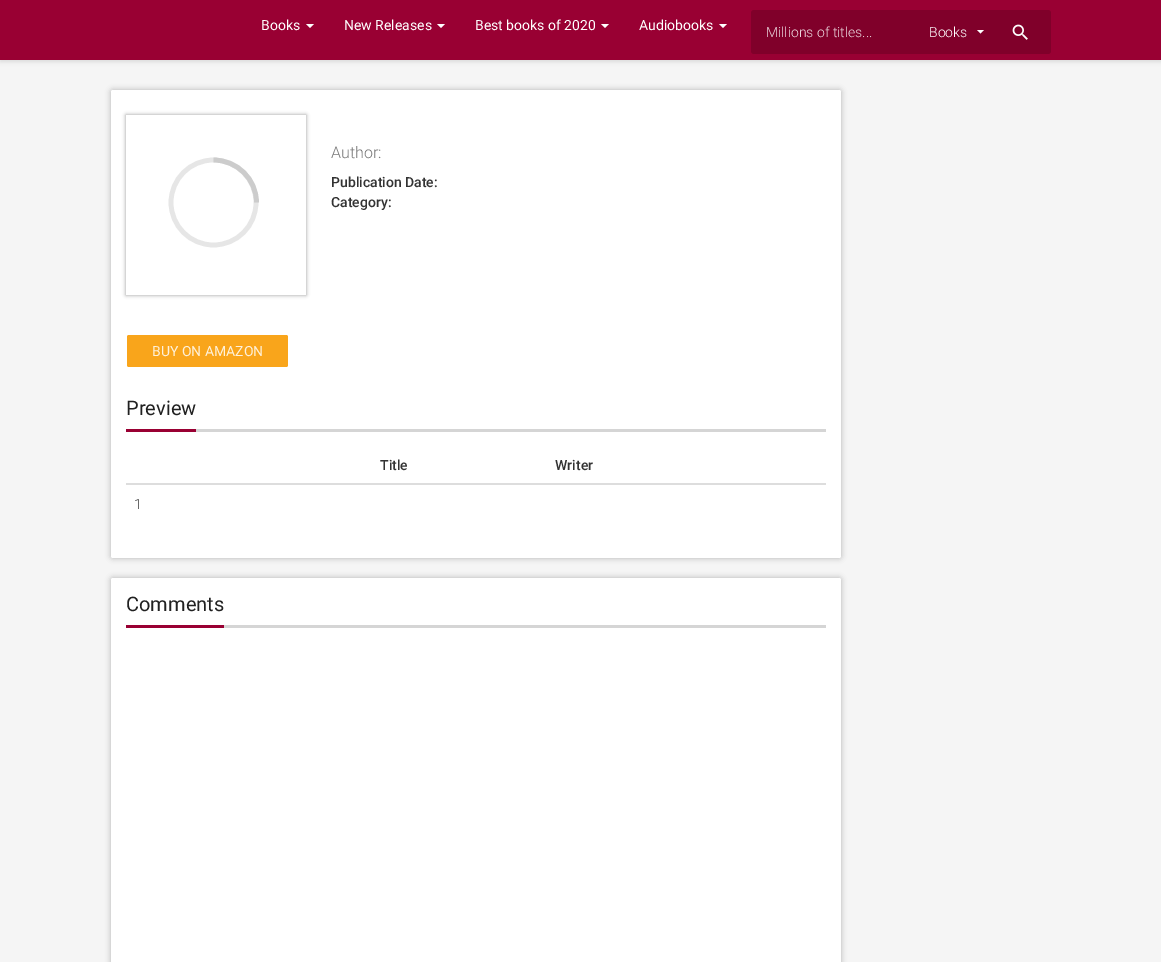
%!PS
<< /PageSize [1161 962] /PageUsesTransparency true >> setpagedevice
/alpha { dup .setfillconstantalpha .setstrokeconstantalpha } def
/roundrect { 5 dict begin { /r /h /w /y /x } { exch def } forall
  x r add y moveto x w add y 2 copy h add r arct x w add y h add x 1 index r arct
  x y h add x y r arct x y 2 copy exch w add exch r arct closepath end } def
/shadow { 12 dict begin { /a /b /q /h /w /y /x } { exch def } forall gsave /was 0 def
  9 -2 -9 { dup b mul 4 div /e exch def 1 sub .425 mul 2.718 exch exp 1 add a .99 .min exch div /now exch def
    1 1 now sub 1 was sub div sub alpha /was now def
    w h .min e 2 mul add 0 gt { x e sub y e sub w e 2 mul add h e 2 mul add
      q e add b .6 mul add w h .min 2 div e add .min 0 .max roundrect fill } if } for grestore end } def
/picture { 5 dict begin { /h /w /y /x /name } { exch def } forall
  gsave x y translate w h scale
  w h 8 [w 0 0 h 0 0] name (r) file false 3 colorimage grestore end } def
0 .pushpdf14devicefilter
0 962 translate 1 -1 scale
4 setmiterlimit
0.961 setgray
0 0 1161 962 rectfill
0 setgray
0 2 1161 60 0 2 0.1 shadow
0.6 0 0.2 setrgbcolor
0 0 1161 60 rectfill
/Roboto-Regular [14 0 0 -14 0 0] selectfont
1 setgray
261 30 moveto (Books) show
newpath 306 24 moveto 314 24 lineto 310 28 lineto closepath fill
344 30 moveto (New Releases) show
newpath 437 24 moveto 445 24 lineto 441 28 lineto closepath fill
475 30 moveto (Best books of 2020) show
newpath 601 24 moveto 609 24 lineto 605 28 lineto closepath fill
639 30 moveto (Audiobooks) show
newpath 719 24 moveto 727 24 lineto 723 28 lineto closepath fill
0.502 0 0.165 setrgbcolor
751 10 300 44 3 roundrect fill
/Roboto-Light [14 0 0 -14 0 0] selectfont
0.922 0.839 0.867 setrgbcolor
766 37 moveto (Millions of titles...) show
1 setgray
929 37 moveto (Books) show
newpath 977 30 moveto 984 30 lineto 980.5 33.5 lineto closepath fill
(img1.rgb) 1012 24 16 16 picture
0 setgray
111 90 730 468 2 3 0.27 shadow
1 setgray
111 90 730 468 2 roundrect fill
gsave
newpath 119 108 moveto 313 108 lineto 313 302 lineto 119 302 lineto closepath 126 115 moveto 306 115 lineto 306 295 lineto 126 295 lineto closepath eoclip newpath
0 setgray
126 115 180 180 0 2 0.4 shadow
grestore
0.902 setgray
4.7 setlinewidth
newpath 213.5 202.5 42.5 0 360 arc closepath stroke
0.8 setgray
newpath 256.5 202.5 moveto 256.5 179 237 160 213.5 160 curveto stroke
/Roboto-Light [16 0 0 -16 0 0] selectfont
0.467 setgray
331 158 moveto (Author:) show
/Roboto-Medium [14 0 0 -14 0 0] selectfont
0.2 setgray
331 187 moveto (Publication Date:) show
331 207 moveto (Category:) show
0.976 0.647 0.106 setrgbcolor
127 335 161 32 2 roundrect fill
/Roboto-Regular [14 0 0 -14 0 0] selectfont
0.996 0.945 0.859 setrgbcolor
152 356 moveto (BUY ON AMAZON) show
0.835 setgray
196 429 630 3 rectfill
0.6 0 0.2 setrgbcolor
126 429 70 3 rectfill
/Roboto-Regular [20 0 0 -20 0 0] selectfont
0.129 setgray
126 415 moveto (Preview) show
/Roboto-Medium [14 0 0 -14 0 0] selectfont
0.2 setgray
380 470 moveto (Title) show
555 470 moveto (Writer) show
0.867 setgray
126 483 700 2 rectfill
/Roboto-Light [14 0 0 -14 0 0] selectfont
0.2 setgray
134 509 moveto (1) show
0 setgray
111 578 730 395 2 3 0.27 shadow
1 setgray
111 578 730 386 2 roundrect fill
0.835 setgray
224 625 602 3 rectfill
0.6 0 0.2 setrgbcolor
126 625 98 3 rectfill
/Roboto-Regular [20 0 0 -20 0 0] selectfont
0.129 setgray
126 611 moveto (Comments) show
.poppdf14devicefilter showpage
